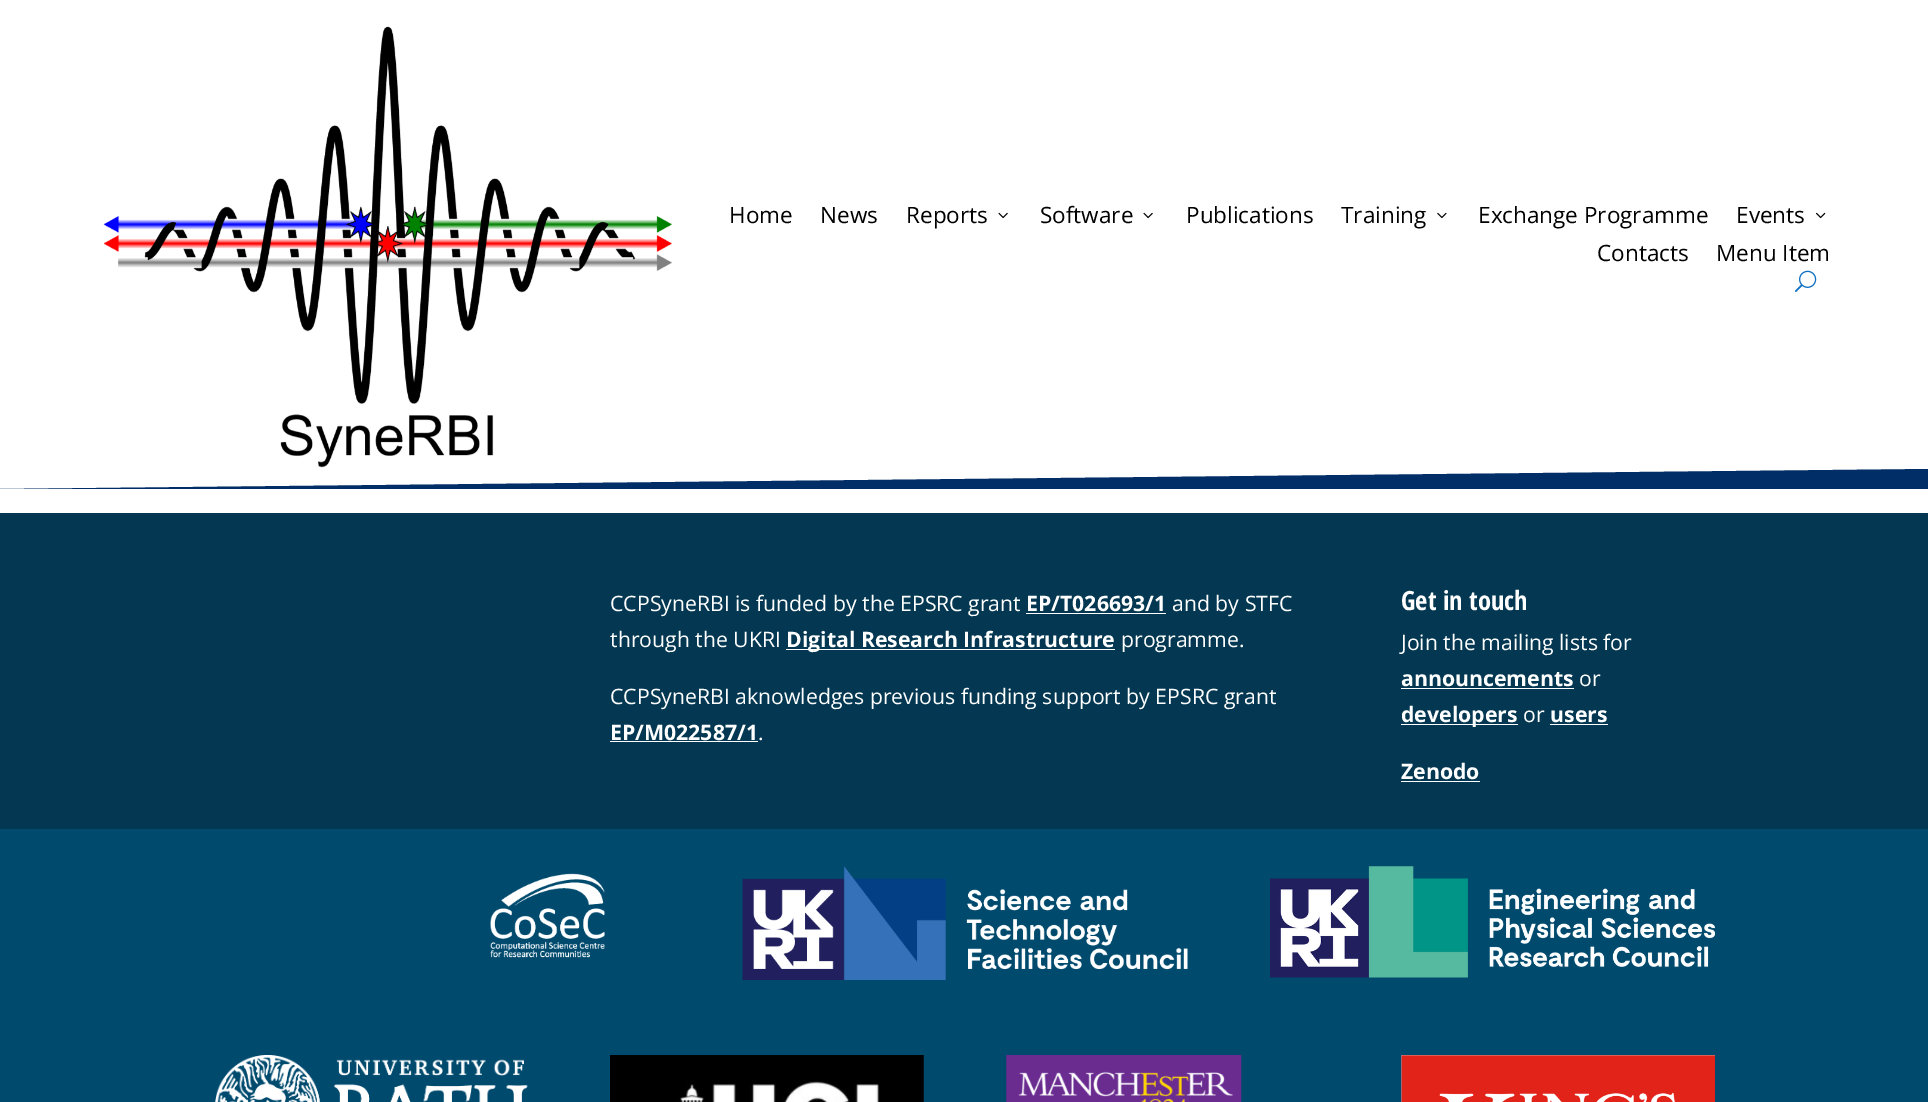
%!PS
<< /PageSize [1928 1102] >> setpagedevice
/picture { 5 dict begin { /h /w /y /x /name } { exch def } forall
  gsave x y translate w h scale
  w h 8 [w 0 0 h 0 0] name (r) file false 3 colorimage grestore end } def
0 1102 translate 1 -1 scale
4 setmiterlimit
1 setgray
0 0 1928 1102 rectfill
(img1.rgb) 103 26 569 442 picture
/OpenSans-Regular [22.5 0 0 -22.5 0 0] selectfont
0 setgray
729 223 moveto (Home) show
820 223 moveto (News) show
906 223 moveto (Reports) show
(img2.rgb) 998 212 10 7 picture
1040 223 moveto (Software) show
(img2.rgb) 1143 212 10 7 picture
1186 223 moveto (Publications) show
1341 223 moveto (Training) show
(img3.rgb) 1437 212 10 7 picture
1478 223 moveto (Exchange Programme) show
1736 223 moveto (Events) show
(img4.rgb) 1816 212 10 7 picture
1597 261 moveto (Contacts) show
1716 261 moveto (Menu Item) show
(img5.rgb) 1795 270 22 22 picture
0.008 0.18 0.404 setrgbcolor
newpath 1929 469 moveto 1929 489 lineto 0 489 lineto closepath fill
0.016 0.22 0.322 setrgbcolor
0 513 1928 316 rectfill
/OpenSans-Regular [21.25 0 0 -21.25 0 0] selectfont
1 setgray
610 611 moveto (CCPSyneRBI is funded by the EPSRC grant) show
/OpenSans-Bold [21.25 0 0 -21.25 0 0] selectfont
1026 611 moveto (EP/T026693/1) show
1026 613 140 1 rectfill
/OpenSans-Regular [21.25 0 0 -21.25 0 0] selectfont
1172 611 moveto (and by STFC) show
610 647 moveto (through the UKRI) show
786 649 329 1 rectfill
/OpenSans-Bold [21.25 0 0 -21.25 0 0] selectfont
786 647 moveto (Digital Research Infrastructure) show
/OpenSans-Regular [21.25 0 0 -21.25 0 0] selectfont
1121 647 moveto (programme.) show
610 704 moveto (CCPSyneRBI aknowledges previous funding support by EPSRC grant) show
/OpenSans-Bold [21.25 0 0 -21.25 0 0] selectfont
610 740 moveto (EP/M022587/1) show
610 741 148 1 rectfill
/OpenSans-Regular [21.25 0 0 -21.25 0 0] selectfont
758 740 moveto (.) show
/OpenSansCondensed-Bold [26.5 0 0 -26.5 0 0] selectfont
1401 610 moveto (Get in touch) show
/OpenSans-Regular [21.25 0 0 -21.25 0 0] selectfont
1401 650 moveto (Join the mailing lists for) show
/OpenSans-Bold [21.25 0 0 -21.25 0 0] selectfont
1401 686 moveto (announcements) show
1401 688 173 1 rectfill
/OpenSans-Regular [21.25 0 0 -21.25 0 0] selectfont
1579 686 moveto (or) show
1401 724 117 1 rectfill
/OpenSans-Bold [21.25 0 0 -21.25 0 0] selectfont
1401 722 moveto (developers) show
/OpenSans-Regular [21.25 0 0 -21.25 0 0] selectfont
1523 722 moveto (or) show
/OpenSans-Bold [21.25 0 0 -21.25 0 0] selectfont
1550 722 moveto (users) show
1550 724 58 1 rectfill
1401 779 moveto (Zenodo) show
1401 781 79 1 rectfill
0 0.29 0.431 setrgbcolor
0 829 1928 273 rectfill
(img6.rgb) 490 873 115 85 picture
(img7.rgb) 742 866 446 114 picture
(img8.rgb) 1270 866 445 112 picture
(img9.rgb) 215 1055 313 47 picture
(img10.rgb) 610 1055 314 47 picture
(img11.rgb) 1006 1055 236 47 picture
(img12.rgb) 1401 1055 314 47 picture
showpage
